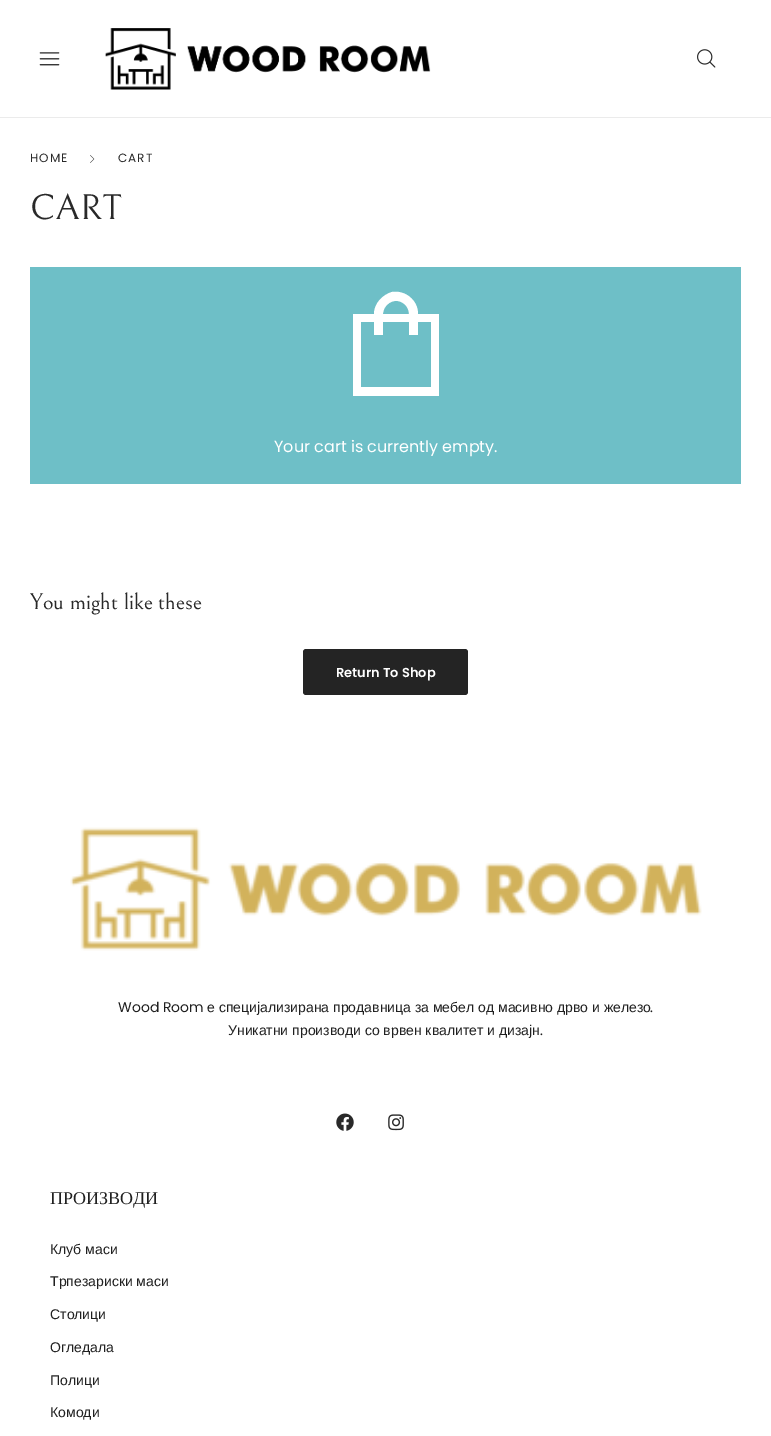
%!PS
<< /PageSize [771 1436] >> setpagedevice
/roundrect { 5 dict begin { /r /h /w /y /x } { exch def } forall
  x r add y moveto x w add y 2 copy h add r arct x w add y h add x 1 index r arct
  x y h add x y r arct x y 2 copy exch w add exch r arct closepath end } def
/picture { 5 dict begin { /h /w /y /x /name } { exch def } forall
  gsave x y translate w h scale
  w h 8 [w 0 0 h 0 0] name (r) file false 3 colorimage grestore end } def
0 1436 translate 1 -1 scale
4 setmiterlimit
1 setgray
0 0 771 1436 rectfill
0.922 setgray
0 117 771 1 rectfill
(img1.rgb) 39 52 21 14 picture
(img2.rgb) 105 28 326 62 picture
(img3.rgb) 697 49 19 19 picture
/Poppins-Regular [12 0 0 -12 0 0] selectfont
0.161 setgray
30 162 moveto 1 0 (HOME) ashow
(img4.rgb) 90 155 5 8 picture
118 162 moveto 1 0 (CART) ashow
/Bellefair-Regular [36 0 0 -36 0 0] selectfont
30 219 moveto (CART) show
0.431 0.749 0.78 setrgbcolor
30 267 711 217 rectfill
1 setgray
newpath 392 292 moveto 382 295 374 304 374 314 curveto 353 314 lineto 353 396 lineto 439 396 lineto 439 314 lineto 418 314 lineto 418 300 405 290 392 292 curveto closepath 401 302 moveto 406 304 409 309 409 314 curveto 383 314 lineto 383 305 393 298 401 302 curveto closepath 374 329 moveto 374 335 lineto 383 335 lineto 383 322 lineto 409 322 lineto 409 335 lineto 418 335 lineto 418 322 lineto 431 322 lineto 431 387 lineto 361 387 lineto 361 322 lineto 374 322 lineto closepath fill
/Poppins-Regular [16 0 0 -16 0 0] selectfont
274 452 moveto (Your cart is currently empty.) show
/Bellefair-Regular [22.75 0 0 -22.75 0 0] selectfont
0.161 setgray
30 609 moveto (You might like these) show
0.141 setgray
303 649 165 46 3 roundrect fill
/Poppins-SemiBold [13 0 0 -13 0 0] selectfont
1 setgray
336 677 moveto (Return To Shop) show
(img5.rgb) 70 827 632 124 picture
/Poppins-Regular [14 0 0 -14 0 0] selectfont
0.125 setgray
118 1012 moveto (Wood Room) show
/LiberationSans-Regular [14 0 0 -14 0 0] selectfont
207 1012 moveto (е специјализирана продавница за мебел од масивно дрво и железо) show
/Poppins-Regular [14 0 0 -14 0 0] selectfont
650 1012 moveto (.) show
/LiberationSans-Regular [14 0 0 -14 0 0] selectfont
228 1035 moveto (Уникатни производи со врвен квалитет и дизајн) show
/Poppins-Regular [14 0 0 -14 0 0] selectfont
540 1035 moveto (.) show
(img6.rgb) 336 1113 18 18 picture
(img7.rgb) 388 1114 16 17 picture
/LiberationSerif-Regular [18 0 0 -18 0 0] selectfont
50 1204 moveto (ПРОИЗВОДИ) show
/LiberationSans-Regular [14 0 0 -14 0 0] selectfont
50 1254 moveto (Клуб маси) show
50 1286 moveto (Трпезариски маси) show
50 1319 moveto (Столици) show
50 1352 moveto (Огледала) show
50 1385 moveto (Полици) show
50 1417 moveto (Комоди) show
showpage
